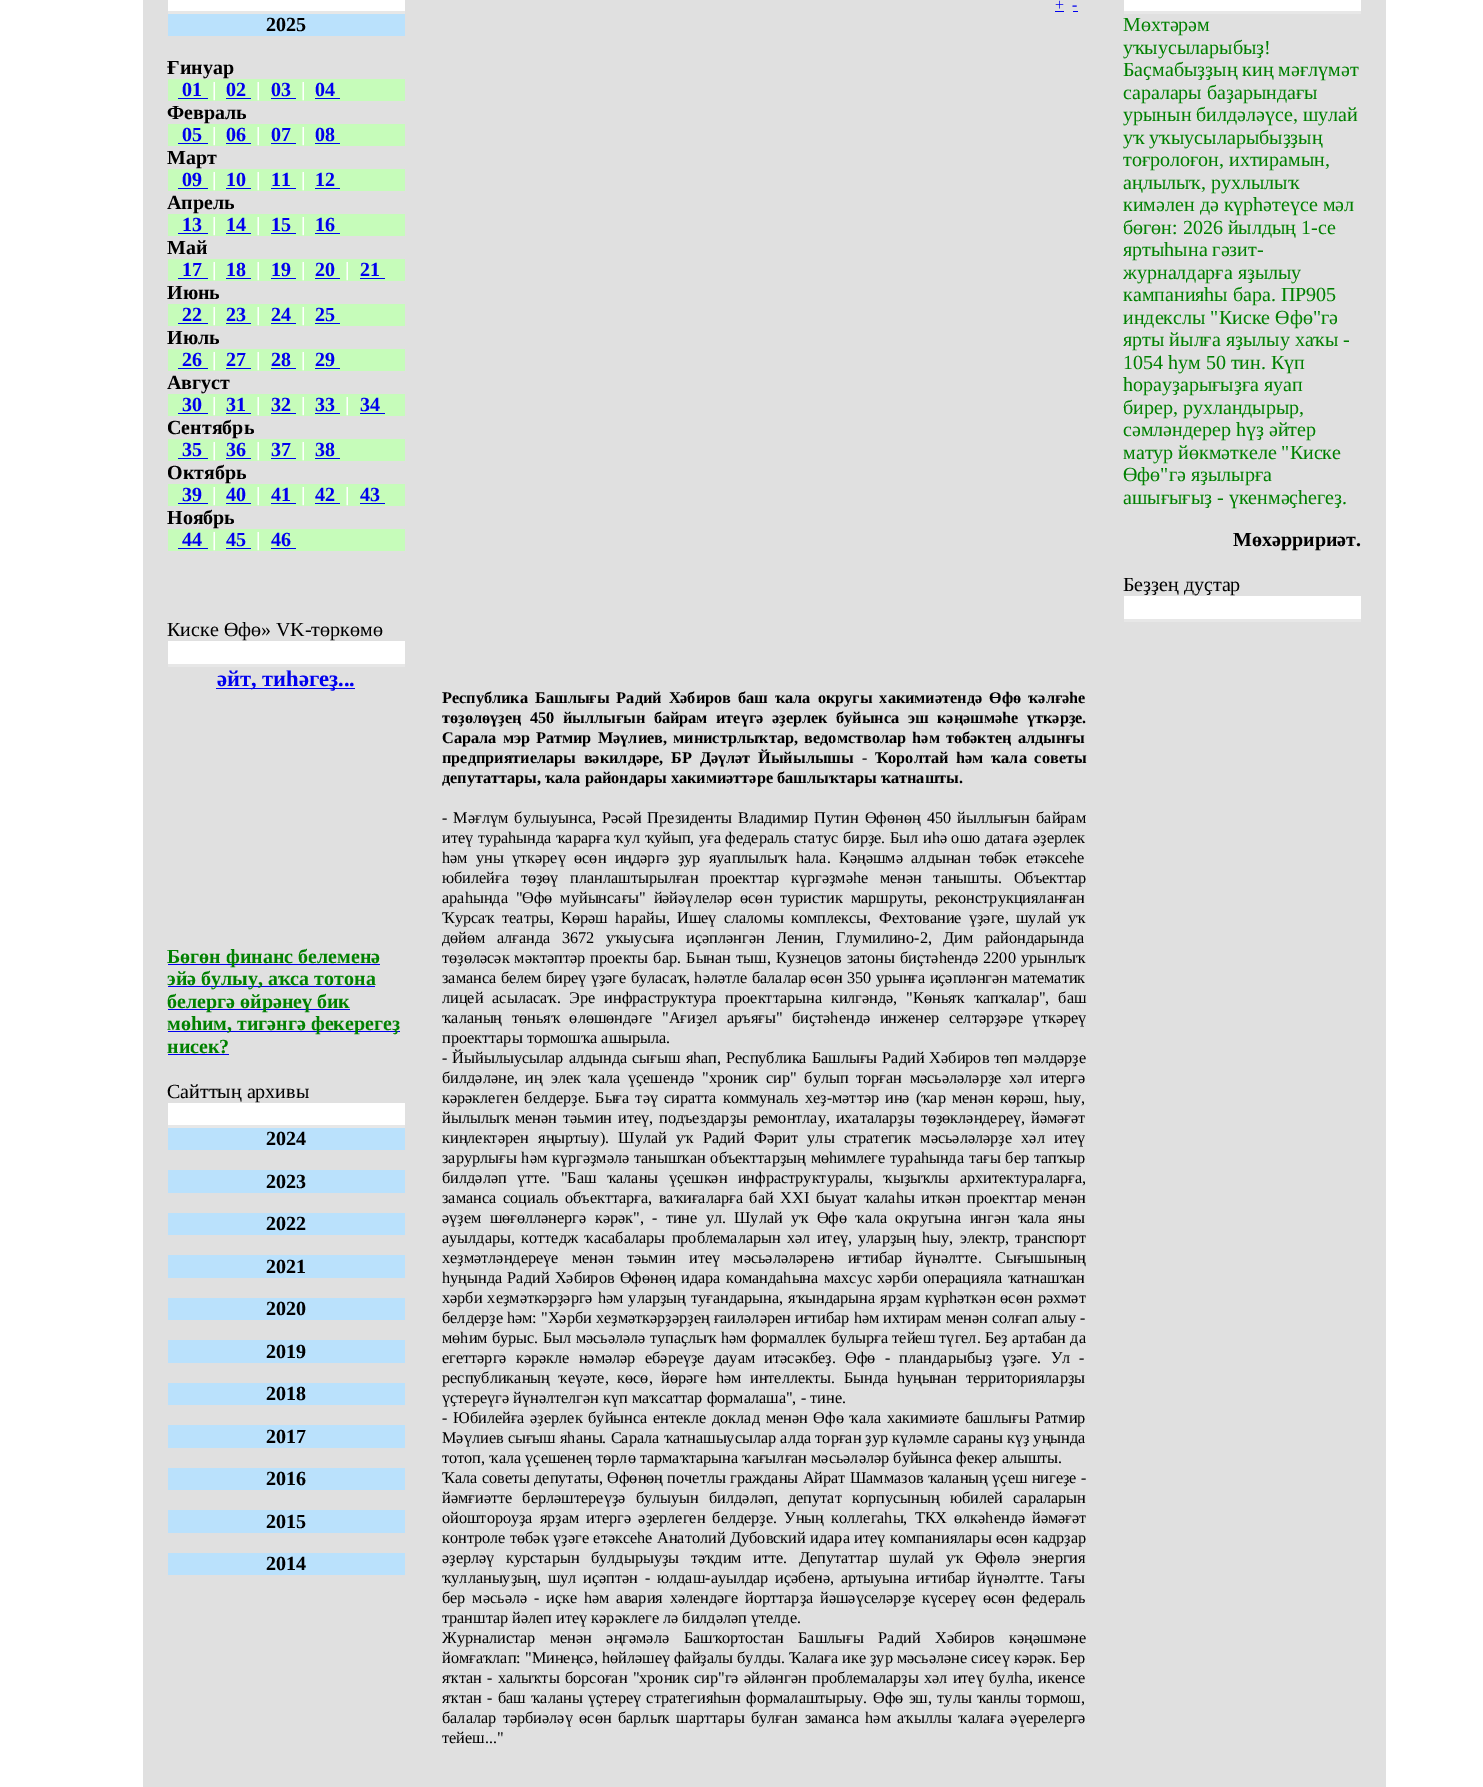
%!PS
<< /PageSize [1483 1787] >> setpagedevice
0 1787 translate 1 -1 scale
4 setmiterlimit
1 setgray
0 0 1483 1787 rectfill
0.878 setgray
143 0 1243 1787 rectfill
1 setgray
168 0 237 11 rectfill
0.906 setgray
168 11 237 3 rectfill
0.729 0.882 0.988 setrgbcolor
168 14 237 22 rectfill
/LiberationSerif-Bold [20 0 0 -20 0 0] selectfont
0 setgray
266 31 moveto (2025) show
167 74 moveto (Ғинуар) show
0.776 0.988 0.729 setrgbcolor
168 79 237 22 rectfill
0 0 0.933 setrgbcolor
182 96 moveto (01) show
178 98 30 1 rectfill
1 setgray
212 96 moveto (|) show
0 0 0.933 setrgbcolor
226 96 moveto (02) show
226 98 25 1 rectfill
1 setgray
256 96 moveto (|) show
0 0 0.933 setrgbcolor
271 96 moveto (03) show
271 98 25 1 rectfill
1 setgray
301 96 moveto (|) show
0 0 0.933 setrgbcolor
315 96 moveto (04) show
315 98 25 1 rectfill
0 setgray
167 119 moveto (Февраль) show
0.776 0.988 0.729 setrgbcolor
168 124 237 22 rectfill
0 0 0.933 setrgbcolor
182 141 moveto (05) show
178 143 30 1 rectfill
1 setgray
212 141 moveto (|) show
0 0 0.933 setrgbcolor
226 141 moveto (06) show
226 143 25 1 rectfill
1 setgray
256 141 moveto (|) show
0 0 0.933 setrgbcolor
271 141 moveto (07) show
271 143 25 1 rectfill
1 setgray
301 141 moveto (|) show
0 0 0.933 setrgbcolor
315 141 moveto (08) show
315 143 25 1 rectfill
0 setgray
167 164 moveto (Март) show
0.776 0.988 0.729 setrgbcolor
168 169 237 22 rectfill
0 0 0.933 setrgbcolor
182 186 moveto (09) show
178 188 30 1 rectfill
1 setgray
212 186 moveto (|) show
0 0 0.933 setrgbcolor
226 186 moveto (10) show
226 188 25 1 rectfill
1 setgray
256 186 moveto (|) show
0 0 0.933 setrgbcolor
271 186 moveto (11) show
271 188 25 1 rectfill
1 setgray
301 186 moveto (|) show
0 0 0.933 setrgbcolor
315 186 moveto (12) show
315 188 25 1 rectfill
0 setgray
167 209 moveto (Апрель) show
0.776 0.988 0.729 setrgbcolor
168 214 237 22 rectfill
0 0 0.933 setrgbcolor
182 231 moveto (13) show
178 233 30 1 rectfill
1 setgray
212 231 moveto (|) show
0 0 0.933 setrgbcolor
226 231 moveto (14) show
226 233 25 1 rectfill
1 setgray
256 231 moveto (|) show
0 0 0.933 setrgbcolor
271 231 moveto (15) show
271 233 25 1 rectfill
1 setgray
301 231 moveto (|) show
0 0 0.933 setrgbcolor
315 231 moveto (16) show
315 233 25 1 rectfill
0 setgray
167 254 moveto (Май) show
0.776 0.988 0.729 setrgbcolor
168 259 237 22 rectfill
0 0 0.933 setrgbcolor
182 276 moveto (17) show
178 278 30 1 rectfill
1 setgray
212 276 moveto (|) show
0 0 0.933 setrgbcolor
226 276 moveto (18) show
226 278 25 1 rectfill
1 setgray
256 276 moveto (|) show
0 0 0.933 setrgbcolor
271 276 moveto (19) show
271 278 25 1 rectfill
1 setgray
301 276 moveto (|) show
0 0 0.933 setrgbcolor
315 276 moveto (20) show
315 278 25 1 rectfill
1 setgray
345 276 moveto (|) show
0 0 0.933 setrgbcolor
360 276 moveto (21) show
360 278 25 1 rectfill
0 setgray
167 299 moveto (Июнь) show
0.776 0.988 0.729 setrgbcolor
168 304 237 22 rectfill
0 0 0.933 setrgbcolor
182 321 moveto (22) show
178 323 30 1 rectfill
1 setgray
212 321 moveto (|) show
0 0 0.933 setrgbcolor
226 321 moveto (23) show
226 323 25 1 rectfill
1 setgray
256 321 moveto (|) show
0 0 0.933 setrgbcolor
271 321 moveto (24) show
271 323 25 1 rectfill
1 setgray
301 321 moveto (|) show
0 0 0.933 setrgbcolor
315 321 moveto (25) show
315 323 25 1 rectfill
0 setgray
167 344 moveto (Июль) show
0.776 0.988 0.729 setrgbcolor
168 349 237 22 rectfill
0 0 0.933 setrgbcolor
182 366 moveto (26) show
178 368 30 1 rectfill
1 setgray
212 366 moveto (|) show
0 0 0.933 setrgbcolor
226 366 moveto (27) show
226 368 25 1 rectfill
1 setgray
256 366 moveto (|) show
0 0 0.933 setrgbcolor
271 366 moveto (28) show
271 368 25 1 rectfill
1 setgray
301 366 moveto (|) show
0 0 0.933 setrgbcolor
315 366 moveto (29) show
315 368 25 1 rectfill
0 setgray
167 389 moveto (Август) show
0.776 0.988 0.729 setrgbcolor
168 394 237 22 rectfill
0 0 0.933 setrgbcolor
182 411 moveto (30) show
178 413 30 1 rectfill
1 setgray
212 411 moveto (|) show
0 0 0.933 setrgbcolor
226 411 moveto (31) show
226 413 25 1 rectfill
1 setgray
256 411 moveto (|) show
0 0 0.933 setrgbcolor
271 411 moveto (32) show
271 413 25 1 rectfill
1 setgray
301 411 moveto (|) show
0 0 0.933 setrgbcolor
315 411 moveto (33) show
315 413 25 1 rectfill
1 setgray
345 411 moveto (|) show
0 0 0.933 setrgbcolor
360 411 moveto (34) show
360 413 25 1 rectfill
0 setgray
167 434 moveto (Сентябрь) show
0.776 0.988 0.729 setrgbcolor
168 439 237 22 rectfill
0 0 0.933 setrgbcolor
182 456 moveto (35) show
178 458 30 1 rectfill
1 setgray
212 456 moveto (|) show
0 0 0.933 setrgbcolor
226 456 moveto (36) show
226 458 25 1 rectfill
1 setgray
256 456 moveto (|) show
0 0 0.933 setrgbcolor
271 456 moveto (37) show
271 458 25 1 rectfill
1 setgray
301 456 moveto (|) show
0 0 0.933 setrgbcolor
315 456 moveto (38) show
315 458 25 1 rectfill
0 setgray
167 479 moveto (Октябрь) show
0.776 0.988 0.729 setrgbcolor
168 484 237 22 rectfill
0 0 0.933 setrgbcolor
182 501 moveto (39) show
178 503 30 1 rectfill
1 setgray
212 501 moveto (|) show
0 0 0.933 setrgbcolor
226 501 moveto (40) show
226 503 25 1 rectfill
1 setgray
256 501 moveto (|) show
0 0 0.933 setrgbcolor
271 501 moveto (41) show
271 503 25 1 rectfill
1 setgray
301 501 moveto (|) show
0 0 0.933 setrgbcolor
315 501 moveto (42) show
315 503 25 1 rectfill
1 setgray
345 501 moveto (|) show
0 0 0.933 setrgbcolor
360 501 moveto (43) show
360 503 25 1 rectfill
0 setgray
167 524 moveto (Ноябрь) show
0.776 0.988 0.729 setrgbcolor
168 529 237 22 rectfill
0 0 0.933 setrgbcolor
182 546 moveto (44) show
178 548 30 1 rectfill
1 setgray
212 546 moveto (|) show
0 0 0.933 setrgbcolor
226 546 moveto (45) show
226 548 25 1 rectfill
1 setgray
256 546 moveto (|) show
0 0 0.933 setrgbcolor
271 546 moveto (46) show
271 548 25 1 rectfill
/LiberationSerif-Regular [20 0 0 -20 0 0] selectfont
0 setgray
167 636 moveto (Киске Өфө» VK-төркөмө) show
1 setgray
168 641 237 23 rectfill
0.906 setgray
168 664 237 3 rectfill
0 0 0.933 setrgbcolor
216 688 139 1 rectfill
/LiberationSerif-Bold [22.5 0 0 -22.5 0 0] selectfont
217 686 moveto (әйт, тиһәгеҙ...) show
168 964 212 1 rectfill
/LiberationSerif-Bold [20 0 0 -20 0 0] selectfont
0 0.502 0 setrgbcolor
167 963 moveto (Бөгөн финанс белеменә) show
0 0 0.933 setrgbcolor
168 986 207 1 rectfill
0 0.502 0 setrgbcolor
167 985 moveto (эйә булыу, аҡса тотона) show
0 0 0.933 setrgbcolor
168 1009 182 1 rectfill
0 0.502 0 setrgbcolor
167 1008 moveto (белергә өйрәнеү бик) show
0 0 0.933 setrgbcolor
168 1031 232 1 rectfill
0 0.502 0 setrgbcolor
167 1030 moveto (мөһим, тигәнгә фекерегеҙ) show
167 1053 moveto (нисек?) show
0 0 0.933 setrgbcolor
168 1054 61 1 rectfill
/LiberationSerif-Regular [20 0 0 -20 0 0] selectfont
0 setgray
167 1098 moveto (Сайттың архивы) show
1 setgray
168 1103 237 22 rectfill
0.906 setgray
168 1125 237 3 rectfill
0.729 0.882 0.988 setrgbcolor
168 1128 237 22 rectfill
/LiberationSerif-Bold [20 0 0 -20 0 0] selectfont
0 setgray
266 1145 moveto (2024) show
0.729 0.882 0.988 setrgbcolor
168 1170 237 23 rectfill
0 setgray
266 1188 moveto (2023) show
0.729 0.882 0.988 setrgbcolor
168 1213 237 22 rectfill
0 setgray
266 1230 moveto (2022) show
0.729 0.882 0.988 setrgbcolor
168 1255 237 23 rectfill
0 setgray
266 1273 moveto (2021) show
0.729 0.882 0.988 setrgbcolor
168 1298 237 22 rectfill
0 setgray
266 1315 moveto (2020) show
0.729 0.882 0.988 setrgbcolor
168 1340 237 23 rectfill
0 setgray
266 1358 moveto (2019) show
0.729 0.882 0.988 setrgbcolor
168 1383 237 22 rectfill
0 setgray
266 1400 moveto (2018) show
0.729 0.882 0.988 setrgbcolor
168 1425 237 23 rectfill
0 setgray
266 1443 moveto (2017) show
0.729 0.882 0.988 setrgbcolor
168 1468 237 22 rectfill
0 setgray
266 1485 moveto (2016) show
0.729 0.882 0.988 setrgbcolor
168 1510 237 23 rectfill
0 setgray
266 1528 moveto (2015) show
0.729 0.882 0.988 setrgbcolor
168 1553 237 22 rectfill
0 setgray
266 1570 moveto (2014) show
/LiberationSerif-Regular [16.25 0 0 -16.25 0 0] selectfont
0 0 0.933 setrgbcolor
1055 10 moveto (+) show
1055 11 9 1 rectfill
1072 10 moveto (-) show
1073 11 5 1 rectfill
/LiberationSerif-Bold [16.25 0 0 -16.25 0 0] selectfont
0 setgray
442 703 moveto 3 0 32 (Республика Башлығы Радий Хәбиров баш ҡала округы хакимиәтендә Өфө ҡәлғәһе) widthshow
442 723 moveto 4.5 0 32 (төҙөлөүҙең 450 йыллығын байрам итеүгә әҙерлек буйынса эш кәңәшмәһе үткәрҙе.) widthshow
442 743 moveto 2.25 0 32 (Сарала мэр Ратмир Мәүлиев, министрлыҡтар, ведомстволар һәм төбәктең алдынғы) widthshow
442 763 moveto 3.75 0 32 (предприятиелары вәкилдәре, БР Дәүләт Йыйылышы - Ҡоролтай һәм ҡала советы) widthshow
442 783 moveto (депутаттары, ҡала райондары хакимиәттәре башлыҡтары ҡатнашты.) show
/LiberationSerif-Regular [16.25 0 0 -16.25 0 0] selectfont
442 823 moveto 2 0 32 (- Мәғлүм булыуынса, Рәсәй Президенты Владимир Путин Өфөнөң 450 йыллығын байрам) widthshow
442 843 moveto 0.5 0 32 (итеү тураһында ҡарарға ҡул ҡуйып, уға федераль статус бирҙе. Был иһә ошо датаға әҙерлек) widthshow
442 863 moveto 4.25 0 32 (һәм уны үткәреү өсөн иңдәргә ҙур яуаплылыҡ һала. Кәңәшмә алдынан төбәк етәксеһе) widthshow
442 883 moveto 7.5 0 32 (юбилейға төҙөү планлаштырылған проекттар күргәҙмәһе менән танышты. Объекттар) widthshow
442 903 moveto 3.75 0 32 (араһында "Өфө муйынсағы" йәйәүлеләр өсөн туристик маршруты, реконструкцияланған) widthshow
442 923 moveto 3.25 0 32 (Ҡурсаҡ театры, Көрәш һарайы, Ишеү слаломы комплексы, Фехтование үҙәге, шулай уҡ) widthshow
442 943 moveto 7.5 0 32 (дөйөм алғанда 3672 уҡыусыға иҫәпләнгән Ленин, Глумилино-2, Дим райондарында) widthshow
442 963 moveto 1 0 32 (төҙөләсәк мәктәптәр проекты бар. Бынан тыш, Кузнецов затоны биҫтәһендә 2200 урынлыҡ) widthshow
442 983 moveto 0.25 0 32 (заманса белем биреү үҙәге буласаҡ, һәләтле балалар өсөн 350 урынға иҫәпләнгән математик) widthshow
442 1003 moveto 4.75 0 32 (лицей асыласаҡ. Эре инфраструктура проекттарына килгәндә, "Көньяҡ ҡапҡалар", баш) widthshow
442 1023 moveto 5.5 0 32 (ҡаланың төньяҡ өлөшөндәге "Ағиҙел аръяғы" биҫтәһендә инженер селтәрҙәре үткәреү) widthshow
442 1043 moveto (проекттары тормошҡа ашырыла.) show
442 1063 moveto 1 0 32 (- Йыйылыусылар алдында сығыш яһап, Республика Башлығы Радий Хәбиров төп мәлдәрҙе) widthshow
442 1083 moveto 3.6 0 32 (билдәләне, иң элек ҡала үҫешендә "хроник сир" булып торған мәсьәләләрҙе хәл итергә) widthshow
442 1103 moveto 2 0 32 (кәрәклеген белдерҙе. Быға тәү сиратта коммуналь хеҙ-мәттәр инә \(ҡар менән көрәш, һыу,) widthshow
442 1123 moveto 1.75 0 32 (йылылыҡ менән тәьмин итеү, подъездарҙы ремонтлау, ихаталарҙы төҙөкләндереү, йәмәғәт) widthshow
442 1143 moveto 5.25 0 32 (киңлектәрен яңыртыу\). Шулай уҡ Радий Фәрит улы стратегик мәсьәләләрҙе хәл итеү) widthshow
442 1163 moveto 0.75 0 32 (зарурлығы һәм күргәҙмәлә танышҡан объекттарҙың мөһимлеге тураһында тағы бер тапҡыр) widthshow
442 1183 moveto 6.25 0 32 (билдәләп үтте. "Баш ҡаланы үҫешкән инфраструктуралы, ҡыҙыҡлы архитектураларға,) widthshow
442 1203 moveto 2.5 0 32 (заманса социаль объекттарға, ваҡиғаларға бай XXI быуат ҡалаһы иткән проекттар менән) widthshow
442 1223 moveto 4.25 0 32 (әүҙем шөғөлләнергә кәрәк", - тине ул.) widthshow
734 1223 moveto 4.25 0 32 (Шулай уҡ Өфө ҡала округына ингән ҡала яны) widthshow
442 1243 moveto 2.25 0 32 (ауылдары, коттедж ҡасабалары проблемаларын хәл итеү, уларҙың һыу, электр, транспорт) widthshow
442 1263 moveto 9 0 32 (хеҙмәтләндереүе менән тәьмин итеү мәсьәләләренә иғтибар йүнәлтте.) widthshow
995 1263 moveto (Сығышының) show
442 1283 moveto 1.25 0 32 (һуңында Радий Хәбиров Өфөнөң идара командаһына махсус хәрби операцияла ҡатнашҡан) widthshow
442 1303 moveto 1 0 32 (хәрби хеҙмәткәрҙәргә һәм уларҙың туғандарына, яҡындарына ярҙам күрһәткән өсөн рәхмәт) widthshow
442 1323 moveto (белдерҙе һәм: "Хәрби хеҙмәткәрҙәрҙең ғаиләләрен иғтибар һәм ихтирам менән солғап алыу -) show
442 1343 moveto 0.25 0 32 (мөһим бурыс. Был мәсьәләлә тупаҫлыҡ һәм формаллек булырға тейеш түгел. Беҙ артабан да) widthshow
442 1363 moveto 5.25 0 32 (егеттәргә кәрәкле нәмәләр ебәреүҙе дауам итәсәкбеҙ. Өфө - пландарыбыҙ үҙәге. Ул -) widthshow
442 1383 moveto 4.5 0 32 (республиканың ҡеүәте, көсө, йөрәге һәм интеллекты. Бында һуңынан территорияларҙы) widthshow
442 1403 moveto (үҫтереүгә йүнәлтелгән күп маҡсаттар формалаша", - тине.) show
442 1423 moveto 1.6 0 32 (- Юбилейға әҙерлек буйынса ентекле доклад менән Өфө ҡала хакимиәте башлығы Ратмир) widthshow
442 1443 moveto 0.1 0 32 (Мәүлиев сығыш яһаны. Сарала ҡатнашыусылар алда торған ҙур күләмле сараны күҙ уңында) widthshow
442 1463 moveto (тотоп, ҡала үҫешенең төрлө тармаҡтарына ҡағылған мәсьәләләр буйынса фекер алышты.) show
442 1483 moveto 0.25 0 32 (Ҡала советы депутаты, Өфөнөң почетлы гражданы Айрат Шаммазов ҡаланың үҫеш нигеҙе -) widthshow
442 1503 moveto 6.25 0 32 (йәмғиәтте берләштереүҙә булыуын билдәләп, депутат корпусының юбилей сараларын) widthshow
442 1523 moveto 3 0 32 (ойоштороуҙа ярҙам итергә әҙерлеген белдерҙе. Уның коллегаһы, ТКХ өлкәһендә йәмәғәт) widthshow
442 1543 moveto 0.5 0 32 (контроле төбәк үҙәге етәксеһе Анатолий Дубовский идара итеү компаниялары өсөн кадрҙар) widthshow
442 1563 moveto 7.5 0 32 (әҙерләү курстарын булдырыуҙы тәҡдим итте. Депутаттар шулай уҡ Өфөлә энергия) widthshow
442 1583 moveto 2.75 0 32 (ҡулланыуҙың, шул иҫәптән - юлдаш-ауылдар иҫәбенә, артыуына иғтибар йүнәлтте. Тағы) widthshow
442 1603 moveto 2.75 0 32 (бер мәсьәлә - иҫке һәм авария хәлендәге йорттарҙа йәшәүселәрҙе күсереү өсөн федераль) widthshow
442 1623 moveto (транштар йәлеп итеү кәрәклеге лә билдәләп үтелде.) show
442 1643 moveto 10.5 0 32 (Журналистар менән әңгәмәлә Башҡортостан Башлығы Радий Хәбиров кәңәшмәне) widthshow
442 1663 moveto (йомғаҡлап: "Минеңсә, һөйләшеү файҙалы булды. Ҡалаға ике ҙур мәсьәләне сисеү кәрәк. Бер) show
442 1683 moveto 1.25 0 32 (яҡтан - халыҡты борсоған "хроник сир"гә әйләнгән проблемаларҙы хәл итеү булһа, икенсе) widthshow
442 1703 moveto 1.25 0 32 (яҡтан - баш ҡаланы үҫтереү стратегияһын формалаштырыу. Өфө эш, тулы ҡанлы тормош,) widthshow
442 1723 moveto 2.4 0 32 (балалар тәрбиәләү өсөн барлыҡ шарттары булған заманса һәм аҡыллы ҡалаға әүерелергә) widthshow
442 1743 moveto (тейеш...") show
1 setgray
1124 0 237 11 rectfill
0.906 setgray
1124 11 237 3 rectfill
/LiberationSerif-Regular [20 0 0 -20 0 0] selectfont
0 0.502 0 setrgbcolor
1123 31 moveto (Мөхтәрәм) show
1123 54 moveto (уҡыусыларыбыҙ!) show
1123 76 moveto (Баҫмабыҙҙың киң мәғлүмәт) show
1123 99 moveto (саралары баҙарындағы) show
1123 121 moveto (урынын билдәләүсе, шулай) show
1123 144 moveto (уҡ уҡыусыларыбыҙҙың) show
1123 166 moveto (тоғролоғон, ихтирамын,) show
1123 189 moveto (аңлылыҡ, рухлылыҡ) show
1123 211 moveto (кимәлен дә күрһәтеүсе мәл) show
1123 234 moveto (бөгөн: 2026 йылдың 1-се) show
1123 256 moveto (яртыһына гәзит-) show
1123 279 moveto (журналдарға яҙылыу) show
1123 301 moveto (кампанияһы бара. ПР905) show
1123 324 moveto (индекслы "Киске Өфө"гә) show
1123 346 moveto (ярты йылға яҙылыу хаҡы -) show
1123 369 moveto (1054 һум 50 тин. Күп) show
1123 391 moveto (һорауҙарығыҙға яуап) show
1123 414 moveto (бирер, рухландырыр,) show
1123 436 moveto (сәмләндерер һүҙ әйтер) show
1123 459 moveto (матур йөкмәткеле "Киске) show
1123 481 moveto (Өфө"гә яҙылырға) show
1123 504 moveto (ашығығыҙ - үкенмәҫһегеҙ.) show
/LiberationSerif-Bold [20 0 0 -20 0 0] selectfont
0 setgray
1233 546 moveto (Мөхәрририәт.) show
/LiberationSerif-Regular [20 0 0 -20 0 0] selectfont
1123 591 moveto (Беҙҙең дуҫтар) show
1 setgray
1124 596 237 23 rectfill
0.906 setgray
1124 619 237 3 rectfill
showpage
